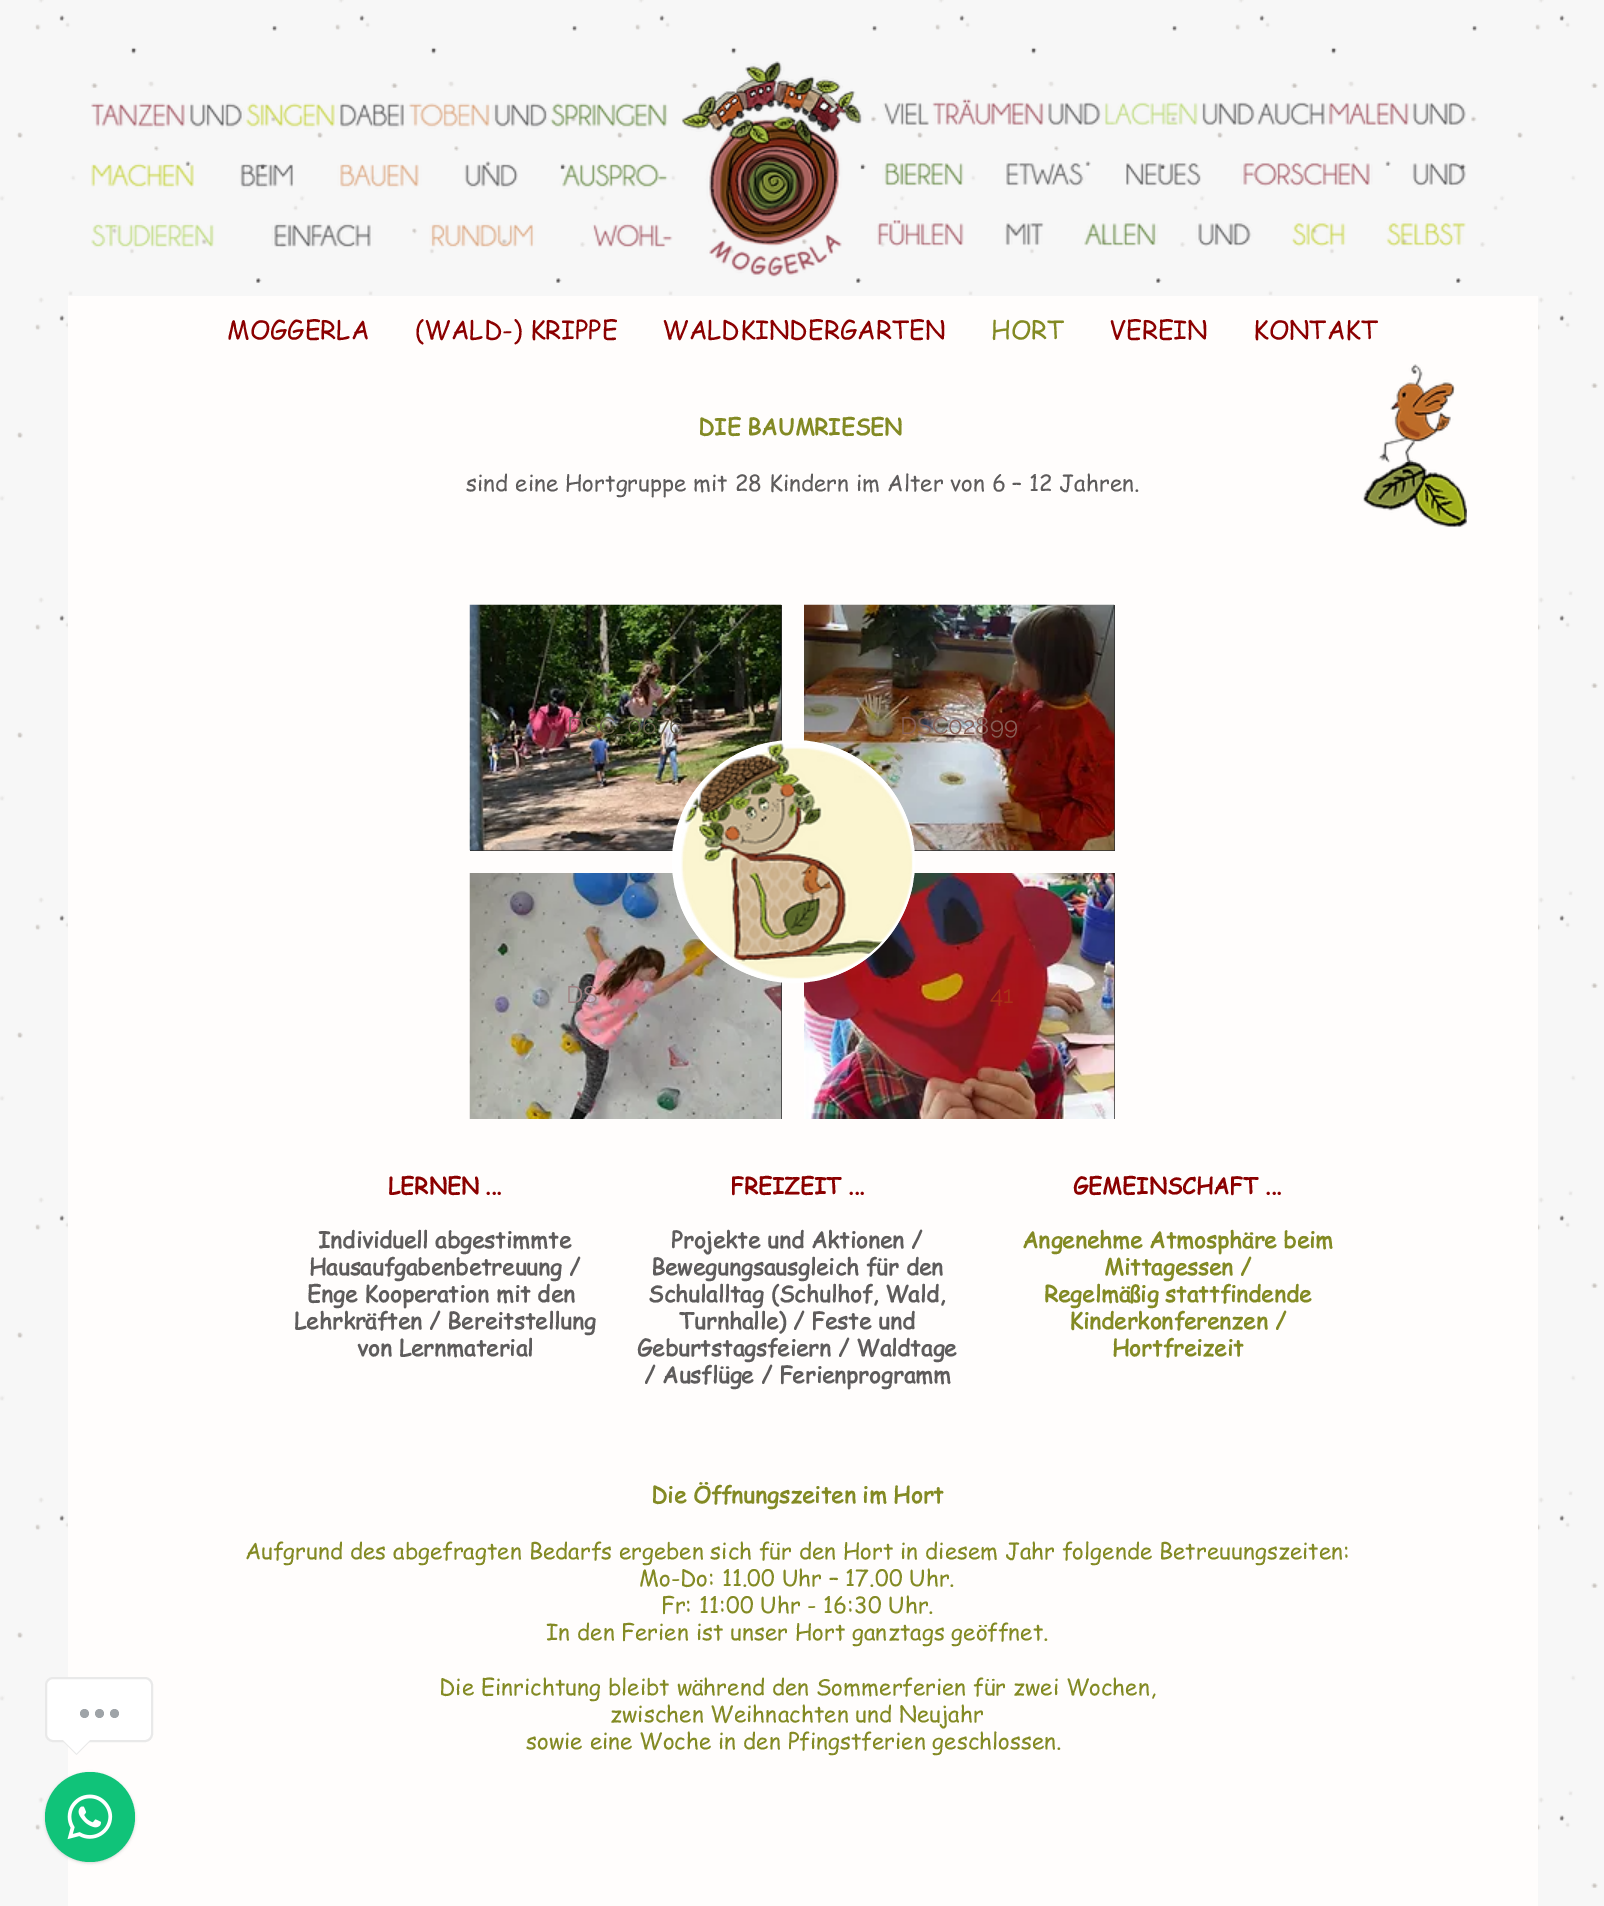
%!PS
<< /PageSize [1604 1906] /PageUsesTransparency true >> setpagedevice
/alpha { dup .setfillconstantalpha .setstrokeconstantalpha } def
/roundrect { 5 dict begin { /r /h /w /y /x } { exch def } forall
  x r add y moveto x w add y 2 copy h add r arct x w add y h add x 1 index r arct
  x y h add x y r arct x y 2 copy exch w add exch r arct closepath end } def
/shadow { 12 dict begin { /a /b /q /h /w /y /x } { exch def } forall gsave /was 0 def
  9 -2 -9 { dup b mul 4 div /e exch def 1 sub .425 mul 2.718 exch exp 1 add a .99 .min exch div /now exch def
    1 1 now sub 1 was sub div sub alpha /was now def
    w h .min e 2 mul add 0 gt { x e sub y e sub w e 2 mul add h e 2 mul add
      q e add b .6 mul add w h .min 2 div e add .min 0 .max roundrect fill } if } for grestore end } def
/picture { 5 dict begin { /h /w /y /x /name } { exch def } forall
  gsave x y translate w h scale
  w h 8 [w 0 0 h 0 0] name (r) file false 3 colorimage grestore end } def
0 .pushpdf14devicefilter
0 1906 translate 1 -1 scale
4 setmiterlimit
0.969 setgray
0 0 1604 1906 rectfill
(img2.rgb) 0 0 1598 1888 picture
1 0.992 0.988 setrgbcolor
68 296 1470 1610 rectfill
1 setgray
46 1678 106 63 7 roundrect gsave fill grestore
0.914 setgray
2 setlinewidth
stroke
0.624 0.643 0.659 setrgbcolor
newpath 84.5 1713.5 4.5 0 360 arc closepath fill
newpath 99.5 1713.5 4.5 0 360 arc closepath fill
newpath 114.5 1713.5 4.5 0 360 arc closepath fill
0.914 setgray
newpath 61.5 1740 moveto 91.5 1740 lineto 76.5 1755 lineto closepath fill
1 setgray
newpath 63 1740 moveto 90 1740 lineto 76.5 1753.5 lineto closepath fill
0 setgray
45 1773 90 90 45 1.5 0.15 shadow
0.063 0.765 0.475 setrgbcolor
newpath 90 1817 45 0 360 arc closepath fill
(img1.rgb) 67 1794 46 46 picture
(img3.rgb) 91 61 1375 216 picture
/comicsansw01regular-Regular [25.5 0 0 -25.5 0 0] selectfont
0.545 0 0 setrgbcolor
227 339 moveto (MOGGERLA) show
415 339 moveto (\(WALD-\) KRIPPE) show
662 339 moveto (WALDKINDERGARTEN) show
0.514 0.541 0.141 setrgbcolor
991 339 moveto (HORT) show
0.545 0 0 setrgbcolor
1109 339 moveto (VEREIN) show
1253 339 moveto (KONTAKT) show
/comicsansw01regular-Bold [22.5 0 0 -22.5 0 0] selectfont
0.514 0.541 0.141 setrgbcolor
698 435 moveto (DIE BAUMRIESEN) show
/comicsansw01regular-Regular [22.5 0 0 -22.5 0 0] selectfont
0.369 0.361 0.361 setrgbcolor
466 491 moveto (sind eine Hortgruppe mit 28 Kindern im Alter von 6 – 12 Jahren.) show
(img4.rgb) 1378 364 77 106 picture
(img5.rgb) 1363 462 104 65 picture
0.184 0.18 0.18 setrgbcolor
470 605 312 246 rectfill
(img6.rgb) 469 604 313 247 picture
/Raleway-Regular [24 0 0 -24 0 0] selectfont
0.412 0.376 0.302 setrgbcolor
567 734 moveto (DSC_0676) show
0.184 0.18 0.18 setrgbcolor
914 605 201 246 rectfill
(img7.rgb) 804 604 311 247 picture
0.529 0.373 0.337 setrgbcolor
900 734 moveto (DSC02899) show
0.184 0.18 0.18 setrgbcolor
781 982 1 137 rectfill
(img8.rgb) 469 873 313 246 picture
0.631 0.51 0.518 setrgbcolor
566 1003 moveto (DS) show
0.184 0.18 0.18 setrgbcolor
1114 873 1 246 rectfill
(img9.rgb) 804 873 311 246 picture
0.655 0.2 0.09 setrgbcolor
990 1003 moveto (41) show
1 setgray
newpath 793.5 861.5 120.5 0 360 arc closepath gsave fill grestore
stroke
(img10.rgb) 681 743 232 236 picture
/comicsansw01regular-Bold [22.5 0 0 -22.5 0 0] selectfont
0.545 0 0 setrgbcolor
388 1194 moveto (LERNEN ...) show
0.369 0.361 0.361 setrgbcolor
318 1248 moveto (Individuell abgestimmte) show
309 1275 moveto (Hausaufgabenbetreuung /) show
307 1302 moveto (Enge Kooperation mit den) show
294 1329 moveto (Lehrkräften / Bereitstellung) show
357 1356 moveto (von Lernmaterial) show
0.545 0 0 setrgbcolor
1073 1194 moveto (GEMEINSCHAFT ...) show
0.514 0.541 0.141 setrgbcolor
1022 1248 moveto (Angenehme Atmosphäre beim) show
1104 1275 moveto (Mittagessen /) show
1044 1302 moveto (Regelmäßig stattfindende) show
1069 1329 moveto (Kinderkonferenzen /) show
1112 1356 moveto (Hortfreizeit) show
0.545 0 0 setrgbcolor
730 1194 moveto (FREIZEIT ...) show
0.369 0.361 0.361 setrgbcolor
671 1248 moveto (Projekte und Aktionen /) show
651 1275 moveto (Bewegungsausgleich für den) show
648 1302 moveto (Schulalltag \(Schulhof, Wald,) show
679 1329 moveto (Turnhalle\) / Feste und) show
637 1356 moveto (Geburtstagsfeiern / Waldtage) show
644 1383 moveto (/ Ausflüge / Ferienprogramm) show
0.514 0.541 0.141 setrgbcolor
651 1503 moveto (Die Öffnungszeiten im Hort) show
/comicsansw01regular-Regular [22.5 0 0 -22.5 0 0] selectfont
245 1559 moveto (Aufgrund des abgefragten Bedarfs ergeben sich für den Hort in diesem Jahr folgende Betreuungszeiten:) show
639 1586 moveto (Mo-Do: 11.00 Uhr – 17.00 Uhr.) show
661 1613 moveto (Fr: 11:00 Uhr - 16:30 Uhr.) show
546 1640 moveto (In den Ferien ist unser Hort ganztags geöffnet.) show
439 1695 moveto (Die Einrichtung bleibt während den Sommerferien für zwei Wochen,) show
610 1722 moveto (zwischen Weihnachten und Neujahr) show
526 1749 moveto (sowie eine Woche in den Pfingstferien geschlossen.) show
.poppdf14devicefilter showpage
